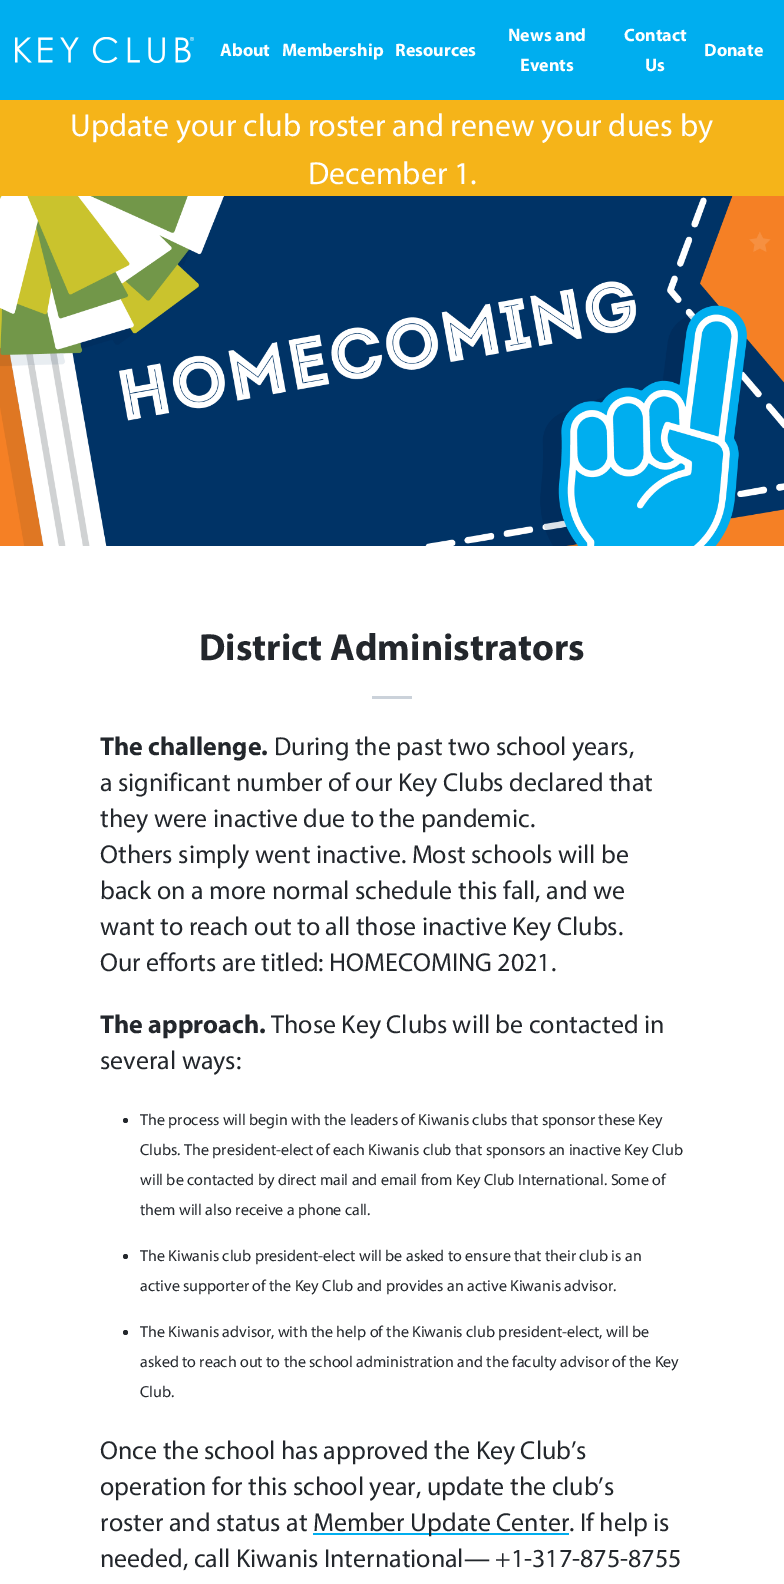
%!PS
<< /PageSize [784 1584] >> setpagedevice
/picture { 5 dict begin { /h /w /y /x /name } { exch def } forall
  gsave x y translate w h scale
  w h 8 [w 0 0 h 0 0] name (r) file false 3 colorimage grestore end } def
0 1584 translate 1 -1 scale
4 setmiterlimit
1 setgray
0 0 784 1584 rectfill
0 0.682 0.937 setrgbcolor
0 0 784 100 rectfill
(img1.rgb) 15 37 179 26 picture
/Myriad-Bold [18 0 0 -18 0 0] selectfont
1 setgray
220 56 moveto (About) show
282 56 moveto (Membership) show
395 56 moveto (Resources) show
508 41 moveto (News and) show
520 71 moveto (Events) show
624 41 moveto (Contact) show
645 71 moveto (Us) show
704 56 moveto (Donate) show
0.961 0.706 0.098 setrgbcolor
0 100 784 96 rectfill
/Myriad-Regular [32 0 0 -32 0 0] selectfont
1 setgray
70 136 moveto (Update your club roster and renew your dues by) show
308 184 moveto (December 1.) show
(img2.rgb) 0 196 784 350 picture
/Myriad-Bold [38 0 0 -38 0 0] selectfont
0.137 0.153 0.173 setrgbcolor
199 660 moveto (District Administrators) show
0.796 0.824 0.855 setrgbcolor
372 696 40 3 rectfill
/Myriad-Bold [26 0 0 -26 0 0] selectfont
0.137 0.153 0.173 setrgbcolor
100 755 moveto (The challenge.) show
/Myriad-Regular [26 0 0 -26 0 0] selectfont
274 755 moveto (During the past two school years,) show
100 791 moveto (a significant number of our Key Clubs declared that) show
100 827 moveto (they were inactive due to the pandemic.) show
100 863 moveto (Others simply went inactive. Most schools will be) show
100 899 moveto (back on a more normal schedule this fall, and we) show
100 935 moveto (want to reach out to all those inactive Key Clubs.) show
100 971 moveto (Our efforts are titled: HOMECOMING 2021.) show
/Myriad-Bold [26 0 0 -26 0 0] selectfont
100 1033 moveto (The approach.) show
/Myriad-Regular [26 0 0 -26 0 0] selectfont
271 1033 moveto (Those Key Clubs will be contacted in) show
100 1069 moveto (several ways:) show
newpath 125.5 1120.5 2.5 0 360 arc closepath fill
/Myriad-Regular [16 0 0 -16 0 0] selectfont
140 1125 moveto (The process will begin with the leaders of Kiwanis clubs that sponsor these Key) show
140 1155 moveto (Clubs. The president-elect of each Kiwanis club that sponsors an inactive Key Club) show
140 1185 moveto (will be contacted by direct mail and email from Key Club International. Some of) show
140 1215 moveto (them will also receive a phone call.) show
newpath 125.5 1256.5 2.5 0 360 arc closepath fill
140 1261 moveto (The Kiwanis club president-elect will be asked to ensure that their club is an) show
140 1291 moveto (active supporter of the Key Club and provides an active Kiwanis advisor.) show
newpath 125.5 1332.5 2.5 0 360 arc closepath fill
140 1337 moveto (The Kiwanis advisor, with the help of the Kiwanis club president-elect, will be) show
140 1367 moveto (asked to reach out to the school administration and the faculty advisor of the Key) show
140 1397 moveto (Club.) show
/Myriad-Regular [26 0 0 -26 0 0] selectfont
100 1459 moveto (Once the school has approved the Key Club’s) show
100 1495 moveto (operation for this school year, update the club’s) show
100 1531 moveto (roster and status at) show
0 0.682 0.937 setrgbcolor
313 1533 256 2 rectfill
0.137 0.153 0.173 setrgbcolor
313 1531 moveto (Member Update Center) show
569 1531 moveto (. If help is) show
100 1567 moveto (needed, call Kiwanis International— +1-317-875-8755) show
showpage
